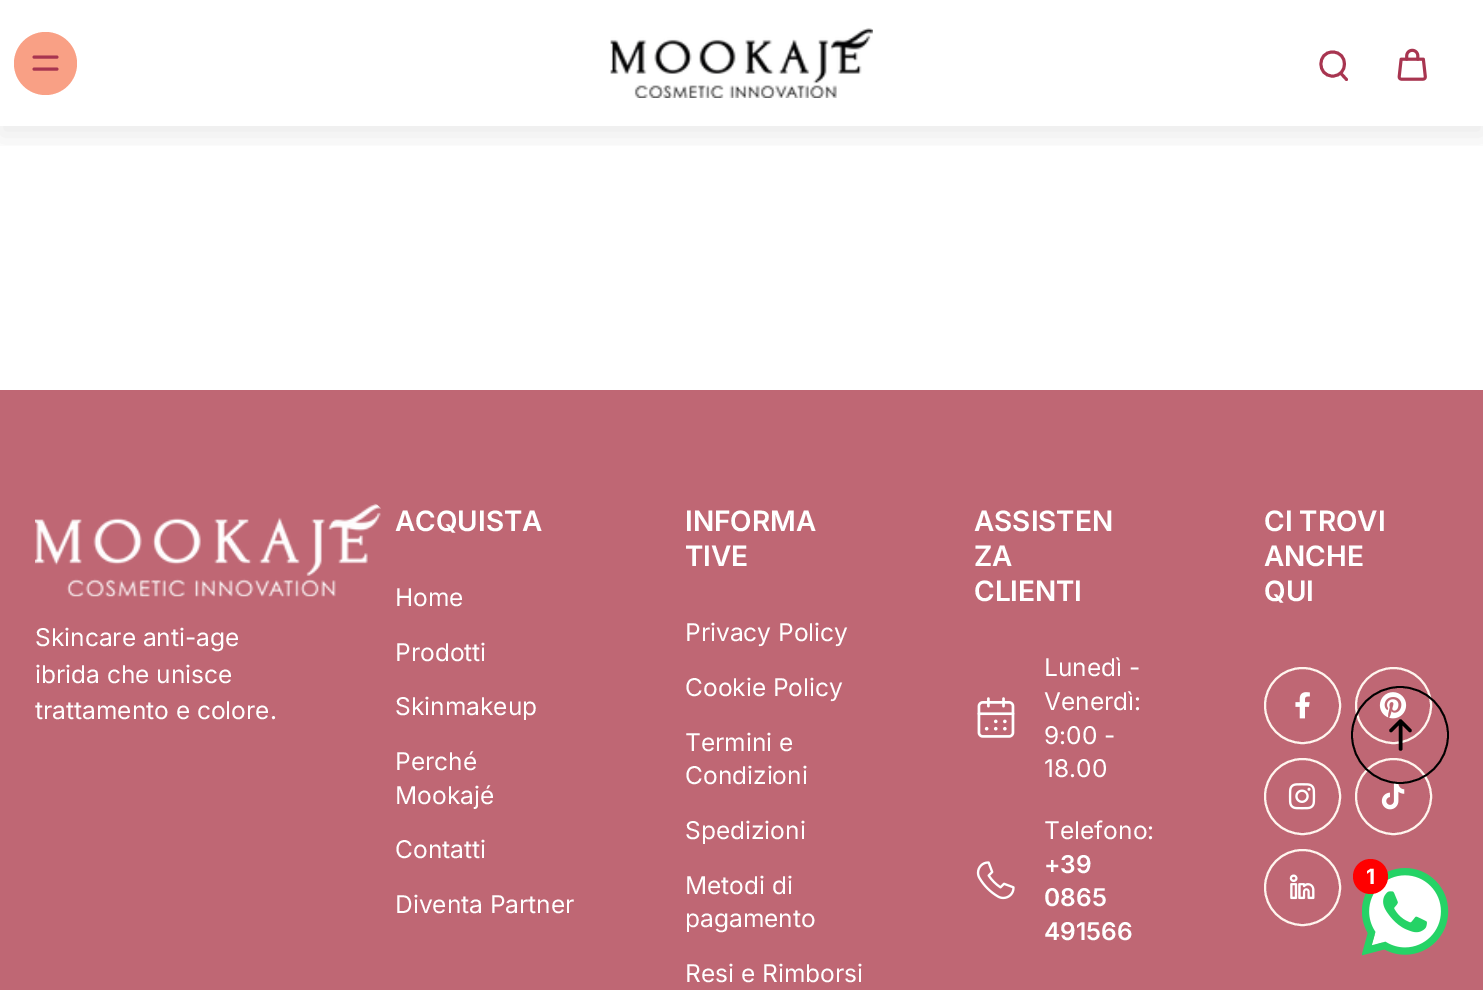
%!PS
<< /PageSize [1483 990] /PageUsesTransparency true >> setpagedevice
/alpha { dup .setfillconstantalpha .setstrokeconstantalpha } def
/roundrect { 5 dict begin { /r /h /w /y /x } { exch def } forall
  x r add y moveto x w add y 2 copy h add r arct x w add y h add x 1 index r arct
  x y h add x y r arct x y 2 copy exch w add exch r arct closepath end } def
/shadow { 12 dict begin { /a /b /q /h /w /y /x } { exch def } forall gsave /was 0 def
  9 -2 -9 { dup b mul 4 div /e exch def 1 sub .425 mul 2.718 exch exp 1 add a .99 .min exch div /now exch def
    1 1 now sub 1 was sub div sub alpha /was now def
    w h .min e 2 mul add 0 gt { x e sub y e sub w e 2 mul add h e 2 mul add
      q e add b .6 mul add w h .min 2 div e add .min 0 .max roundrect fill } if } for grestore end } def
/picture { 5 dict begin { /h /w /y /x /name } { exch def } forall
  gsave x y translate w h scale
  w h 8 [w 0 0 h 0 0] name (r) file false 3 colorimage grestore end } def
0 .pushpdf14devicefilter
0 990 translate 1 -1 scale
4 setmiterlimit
1 setgray
0 0 1483 990 rectfill
gsave
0 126 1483 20 rectclip
0.141 setgray
0 9 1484 126 0 13 0.1 shadow
grestore
0.976 0.627 0.522 setrgbcolor
newpath 45.5 63.5 31.5 0 360 arc closepath fill
0.659 0.208 0.314 setrgbcolor
2.9 setlinewidth
1 setlinecap
newpath 34 57 moveto 57 57 lineto 34 69 moveto 57 69 lineto stroke
(img1.rgb) 610 28 263 70 picture
0 setlinecap
newpath 1332.5 76 moveto 1348.5 76 1348.5 52 1332.5 52 curveto 1317 52 1317 76 1332.5 76 curveto closepath stroke
1 setlinecap
newpath 1341 73.5 moveto 1346.5 79.5 lineto stroke
(img2.rgb) 1397 48 30 33 picture
0.749 0.404 0.455 setrgbcolor
0 390 1483 600 rectfill
/Inter-SemiBold [28 0 0 -28 0 0] selectfont
1 setgray
395 531 moveto (ACQUISTA) show
/Inter-Regular [24.5 0 0 -24.5 0 0] selectfont
395 606 moveto (Home) show
395 661 moveto (Prodotti) show
395 715 moveto (Skinmakeup) show
395 770 moveto (Perché) show
395 804 moveto (Mookajé) show
395 858 moveto (Contatti) show
395 913 moveto (Diventa Partner) show
/Inter-SemiBold [28 0 0 -28 0 0] selectfont
685 531 moveto (INFORMA) show
685 566 moveto (TIVE) show
/Inter-Regular [24.5 0 0 -24.5 0 0] selectfont
685 641 moveto (Privacy Policy) show
685 696 moveto (Cookie Policy) show
685 751 moveto (Termini e) show
685 784 moveto (Condizioni) show
685 839 moveto (Spedizioni) show
685 894 moveto (Metodi di) show
685 927 moveto (pagamento) show
685 982 moveto (Resi e Rimborsi) show
/Inter-SemiBold [28 0 0 -28 0 0] selectfont
974 531 moveto (ASSISTEN) show
974 566 moveto (ZA) show
974 601 moveto (CLIENTI) show
(img3.rgb) 977 697 38 41 picture
/Inter-Regular [24.5 0 0 -24.5 0 0] selectfont
1044 676 moveto (Lunedì -) show
1044 710 moveto (Venerdì:) show
1044 744 moveto (9:00 -) show
1044 777 moveto (18.00) show
(img4.rgb) 976 861 39 39 picture
1044 839 moveto (Telefono:) show
/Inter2-SemiBold [24.5 0 0 -24.5 0 0] selectfont
1044 873 moveto (+39) show
1044 906 moveto (0865) show
1044 940 moveto (491566) show
/Inter-SemiBold [28 0 0 -28 0 0] selectfont
1264 531 moveto (CI TROVI) show
1264 566 moveto (ANCHE) show
1264 601 moveto (QUI) show
1 0.961 0.933 setrgbcolor
2 setlinewidth
0 setlinecap
newpath 1302.5 705.5 37.5 0 360 arc closepath stroke
(img5.rgb) 1295 692 15 27 picture
newpath 1393.5 705.5 37.5 0 360 arc closepath stroke
(img6.rgb) 1379 692 28 27 picture
newpath 1302.5 796.5 37.5 0 360 arc closepath stroke
(img7.rgb) 1288 783 28 27 picture
newpath 1393.5 796.5 37.5 0 360 arc closepath stroke
(img8.rgb) 1381 783 24 27 picture
newpath 1302.5 887.5 37.5 0 360 arc closepath stroke
(img9.rgb) 1289 874 26 26 picture
(img10.rgb) 35 503 346 94 picture
/Inter-Regular [24.5 0 0 -24.5 0 0] selectfont
1 setgray
35 646 moveto (Skincare anti-age) show
35 683 moveto (ibrida che unisce) show
35 719 moveto (trattamento e colore.) show
0 setgray
1.8 setlinewidth
newpath 1352 735 moveto 1352 708.5 1373.5 687 1400 687 curveto 1426.5 687 1448 708.5 1448 735 curveto 1448 761.5 1426.5 783 1400 783 curveto 1373.5 783 1352 761.5 1352 735 curveto closepath stroke
3.5 setlinewidth
1 setlinecap
1 setlinejoin
newpath 1410 730.5 moveto 1400.5 721 lineto 1391 730.5 lineto 1400.5 749 moveto 1400.5 723 lineto stroke
(img11.rgb) 1362 868 87 88 picture
1 0 0 setrgbcolor
newpath 1370.5 876.5 17.5 0 360 arc closepath fill
/Inter-Bold [21 0 0 -21 0 0] selectfont
1 setgray
1366 884 moveto (1) show
.poppdf14devicefilter showpage
